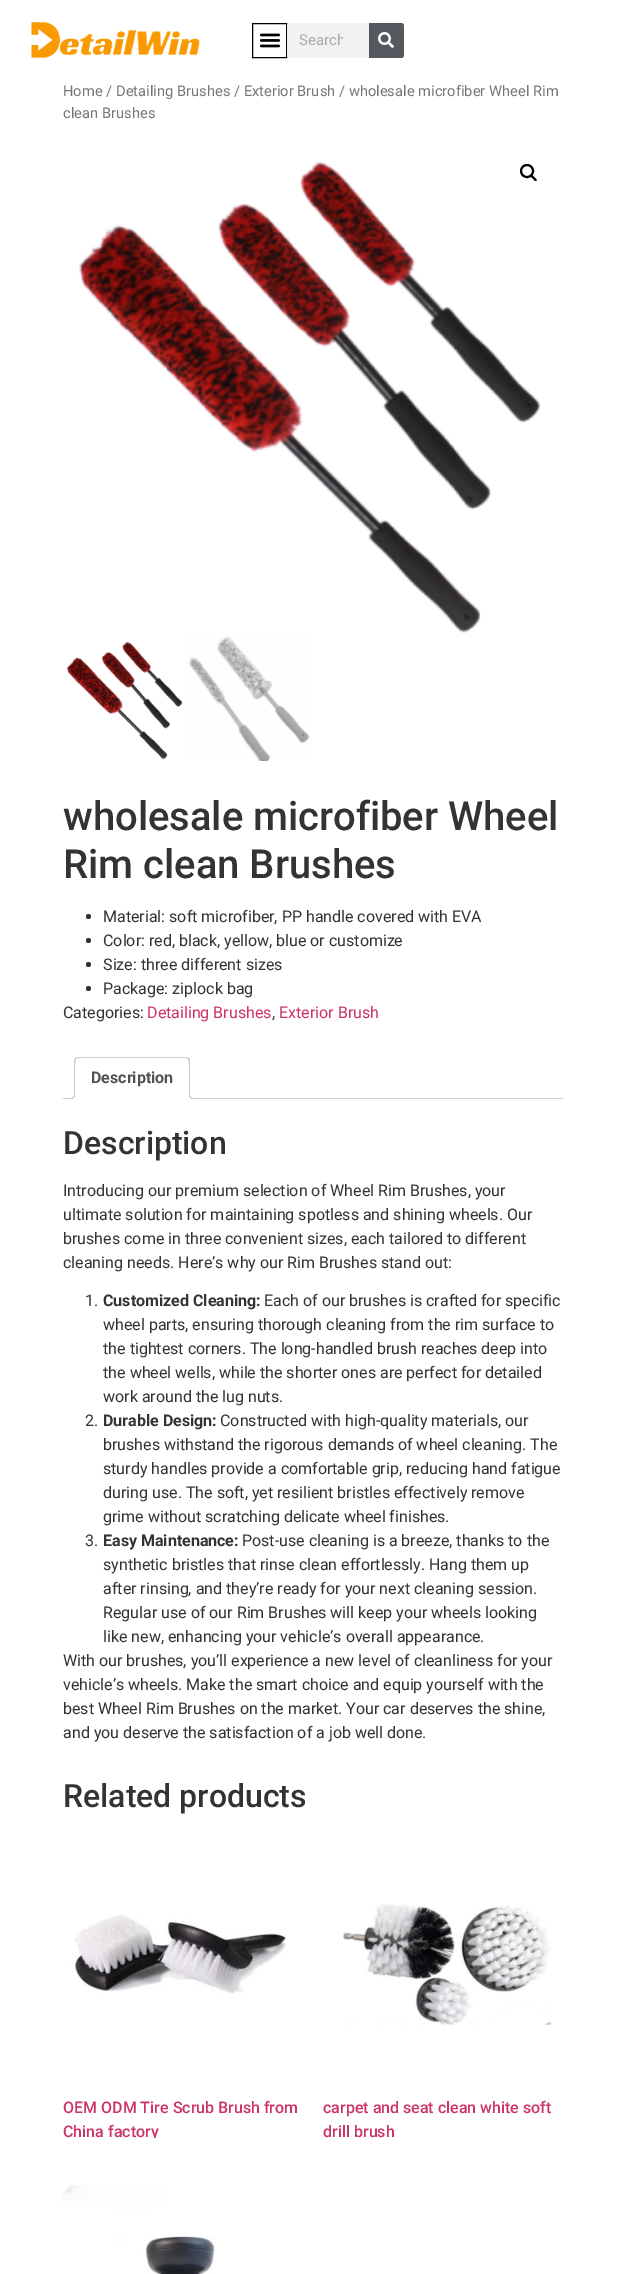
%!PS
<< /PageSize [625 2274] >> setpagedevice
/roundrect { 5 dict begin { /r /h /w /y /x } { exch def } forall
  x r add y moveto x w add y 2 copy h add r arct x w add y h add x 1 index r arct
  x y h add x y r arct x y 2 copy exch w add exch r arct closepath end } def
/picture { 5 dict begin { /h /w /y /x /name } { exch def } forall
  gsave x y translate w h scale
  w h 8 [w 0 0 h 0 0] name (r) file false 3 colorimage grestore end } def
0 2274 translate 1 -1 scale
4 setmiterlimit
1 setgray
0 0 625 2274 rectfill
(img1.rgb) 31 21 169 38 picture
0 setgray
252.5 23.5 34 34 rectstroke
(img2.rgb) 259 33 22 15 picture
0.945 0.949 0.953 setrgbcolor
287 23 117 35 3 roundrect fill
gsave
299 31 44 18 rectclip
/Roboto-Regular [15 0 0 -15 0 0] selectfont
0.667 setgray
299 45 moveto (Search) show
grestore
0.329 0.349 0.373 setrgbcolor
newpath 369 23 moveto 401 23 lineto 402.5 23 404 24.5 404 26 curveto 404 55 lineto 404 56.5 402.5 58 401 58 curveto 369 58 lineto closepath fill
(img3.rgb) 378 32 16 16 picture
/Roboto-Regular [14.7 0 0 -14.7 0 0] selectfont
0.463 setgray
63 96 moveto (Home / Detailing Brushes / Exterior Brush / wholesale microfiber Wheel Rim) show
63 118 moveto (clean Brushes) show
(img4.rgb) 79 162 461 471 picture
0 setgray
2 setlinewidth
newpath 527 171 6 0 360 arc closepath stroke
newpath 530.5 175 moveto 532 174 533.5 176.5 534 177 curveto 535 178 537.5 179.5 536.5 180.5 curveto 535 182 533.5 179 533 178.5 curveto 532 178 529.5 176 530.5 175 curveto closepath fill
(img5.rgb) 67 641 116 119 picture
(img6.rgb) 188 636 122 125 picture
/Roboto-Medium [40 0 0 -40 0 0] selectfont
0.2 setgray
63 830 moveto (wholesale microfiber Wheel) show
63 878 moveto (Rim clean Brushes) show
newpath 88.5 916.5 2.5 0 360 arc closepath fill
/Roboto-Regular [16 0 0 -16 0 0] selectfont
103 922 moveto (Material: soft microfiber, PP handle covered with EVA) show
newpath 88.5 940.5 2.5 0 360 arc closepath fill
103 946 moveto (Color: red, black, yellow, blue or customize) show
newpath 88.5 964.5 2.5 0 360 arc closepath fill
103 970 moveto (Size: three different sizes) show
newpath 88.5 988.5 2.5 0 360 arc closepath fill
103 994 moveto (Package: ziplock bag) show
63 1018 moveto (Categories:) show
0.8 0.2 0.4 setrgbcolor
147 1018 moveto (Detailing Brushes) show
0.2 setgray
272 1018 moveto (,) show
0.8 0.2 0.4 setrgbcolor
279 1018 moveto (Exterior Brush) show
0.812 0.784 0.847 setrgbcolor
63 1098 500 1 rectfill
1 setgray
newpath 78 1057 moveto 186 1057 lineto 188 1057 190 1059 190 1061 curveto 190 1099 lineto 74 1099 lineto 74 1061 lineto 74 1059 76 1057 78 1057 curveto closepath fill
0.812 0.784 0.847 setrgbcolor
newpath 78 1057 moveto 75 1058 lineto 76 1059 lineto 78 1058 lineto 186 1058 lineto 188 1059 lineto 189 1058 lineto 186 1057 lineto closepath fill
newpath 190 1099 moveto 190 1061 lineto 190 1060 190 1059 189 1058 curveto 188 1059 lineto 190 1061 189 1093 189 1098 curveto closepath fill
1 setgray
newpath 190 1099 moveto 189 1098 lineto 75 1098 lineto 74 1099 lineto closepath fill
0.812 0.784 0.847 setrgbcolor
newpath 74 1099 moveto 75 1098 lineto 75 1093 74 1061 76 1059 curveto 75 1058 lineto 74 1061 lineto closepath fill
/Roboto-Bold [16 0 0 -16 0 0] selectfont
0.318 setgray
91 1083 moveto (Description) show
gsave
63 1057 500 42 rectclip
1 setgray
newpath 72 1099 moveto 72 1101 lineto 75.5 1101 77 1099.5 77 1096 curveto 75 1096 lineto 74.5 1097.5 73.5 1098.5 72 1099 curveto closepath fill
grestore
0.812 0.784 0.847 setrgbcolor
newpath 70 1094 moveto 75 1094 lineto 75 1097.5 73.5 1099 70 1099 curveto closepath 70 1094 moveto 74 1094 lineto 74 1097 73 1098 70 1098 curveto closepath eofill
gsave
63 1057 500 42 rectclip
1 setgray
newpath 187 1096 moveto 187 1099.5 188.5 1101 192 1101 curveto 192 1099 lineto 190.5 1098.5 189.5 1097.5 189 1096 curveto closepath fill
grestore
newpath 189 1094 moveto 194 1094 lineto 194 1099 lineto 191.5 1099 189 1098 189 1095 curveto closepath 190 1094 moveto 194 1094 lineto 194 1098 lineto 192 1098 190 1097.5 190 1095 curveto closepath eofill
/Roboto-Medium [32 0 0 -32 0 0] selectfont
0.2 setgray
63 1154 moveto (Description) show
/Roboto-Regular [16 0 0 -16 0 0] selectfont
63 1196 moveto (Introducing our premium selection of Wheel Rim Brushes, your) show
63 1220 moveto (ultimate solution for maintaining spotless and shining wheels. Our) show
63 1244 moveto (brushes come in three convenient sizes, each tailored to different) show
63 1268 moveto (cleaning needs. Here’s why our Rim Brushes stand out:) show
85 1306 moveto (1.) show
/Roboto-Bold [16 0 0 -16 0 0] selectfont
103 1306 moveto (Customized Cleaning:) show
/Roboto-Regular [16 0 0 -16 0 0] selectfont
264 1306 moveto (Each of our brushes is crafted for specific) show
103 1330 moveto (wheel parts, ensuring thorough cleaning from the rim surface to) show
103 1354 moveto (the tightest corners. The long-handled brush reaches deep into) show
103 1378 moveto (the wheel wells, while the shorter ones are perfect for detailed) show
103 1402 moveto (work around the lug nuts.) show
85 1426 moveto (2.) show
/Roboto-Bold [16 0 0 -16 0 0] selectfont
103 1426 moveto (Durable Design:) show
/Roboto-Regular [16 0 0 -16 0 0] selectfont
220 1426 moveto (Constructed with high-quality materials, our) show
103 1450 moveto (brushes withstand the rigorous demands of wheel cleaning. The) show
103 1474 moveto (sturdy handles provide a comfortable grip, reducing hand fatigue) show
103 1498 moveto (during use. The soft, yet resilient bristles effectively remove) show
103 1522 moveto (grime without scratching delicate wheel finishes.) show
85 1546 moveto (3.) show
/Roboto-Bold [16 0 0 -16 0 0] selectfont
103 1546 moveto (Easy Maintenance:) show
/Roboto-Regular [16 0 0 -16 0 0] selectfont
242 1546 moveto (Post-use cleaning is a breeze, thanks to the) show
103 1570 moveto (synthetic bristles that rinse clean effortlessly. Hang them up) show
103 1594 moveto (after rinsing, and they’re ready for your next cleaning session.) show
103 1618 moveto (Regular use of our Rim Brushes will keep your wheels looking) show
103 1642 moveto (like new, enhancing your vehicle’s overall appearance.) show
63 1666 moveto (With our brushes, you’ll experience a new level of cleanliness for your) show
63 1690 moveto (vehicle’s wheels. Make the smart choice and equip yourself with the) show
63 1714 moveto (best Wheel Rim Brushes on the market. Your car deserves the shine,) show
63 1738 moveto (and you deserve the satisfaction of a job well done.) show
/Roboto-Medium [32 0 0 -32 0 0] selectfont
63 1807 moveto (Related products) show
(img7.rgb) 71 1914 216 80 picture
/Roboto-Medium [16 0 0 -16 0 0] selectfont
0.8 0.2 0.4 setrgbcolor
63 2113 moveto (OEM ODM Tire Scrub Brush from) show
gsave
63 2088 240 50 rectclip
63 2137 moveto (China factory) show
grestore
(img8.rgb) 343 1904 209 121 picture
323 2113 moveto (carpet and seat clean white soft) show
323 2137 moveto (drill brush) show
(img9.rgb) 63 2185 154 89 picture
showpage
